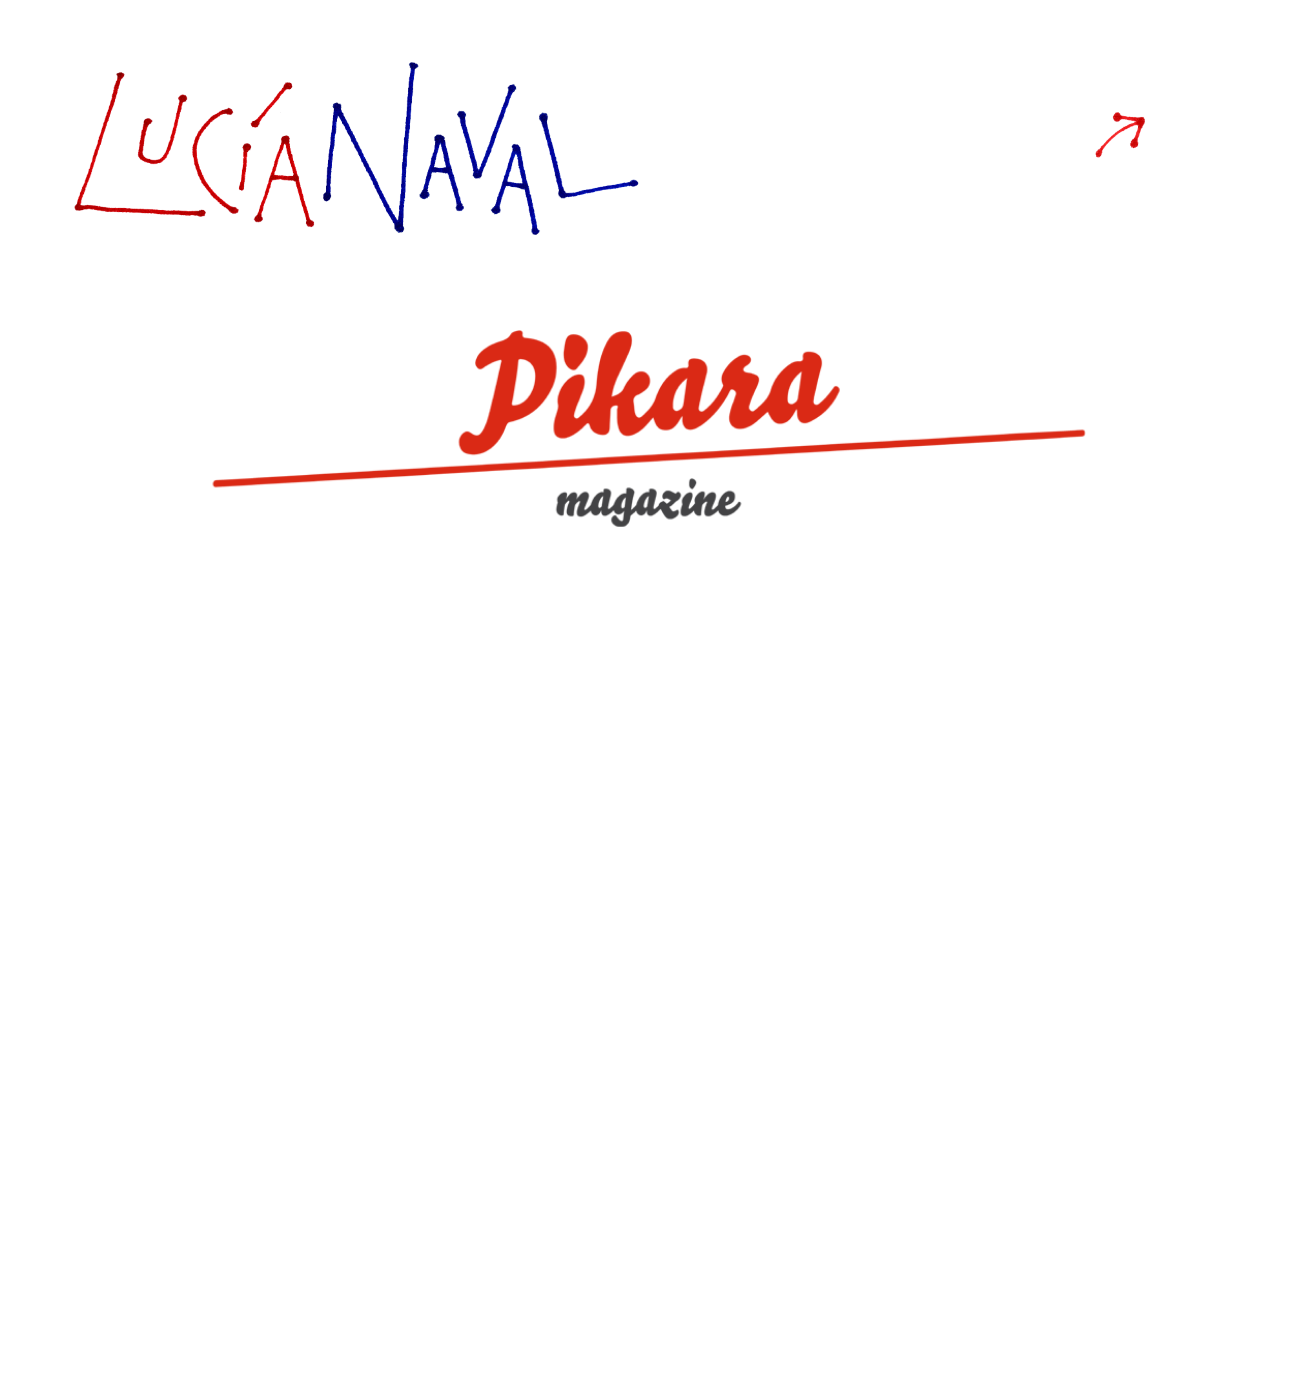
%!PS
<< /PageSize [1294 1382] >> setpagedevice
/picture { 5 dict begin { /h /w /y /x /name } { exch def } forall
  gsave x y translate w h scale
  w h 8 [w 0 0 h 0 0] name (r) file false 3 colorimage grestore end } def
0 1382 translate 1 -1 scale
4 setmiterlimit
1 setgray
0 0 1294 1382 rectfill
(img1.rgb) 74 62 565 173 picture
(img2.rgb) 1095 112 50 46 picture
(img3.rgb) 212 330 874 197 picture
showpage
